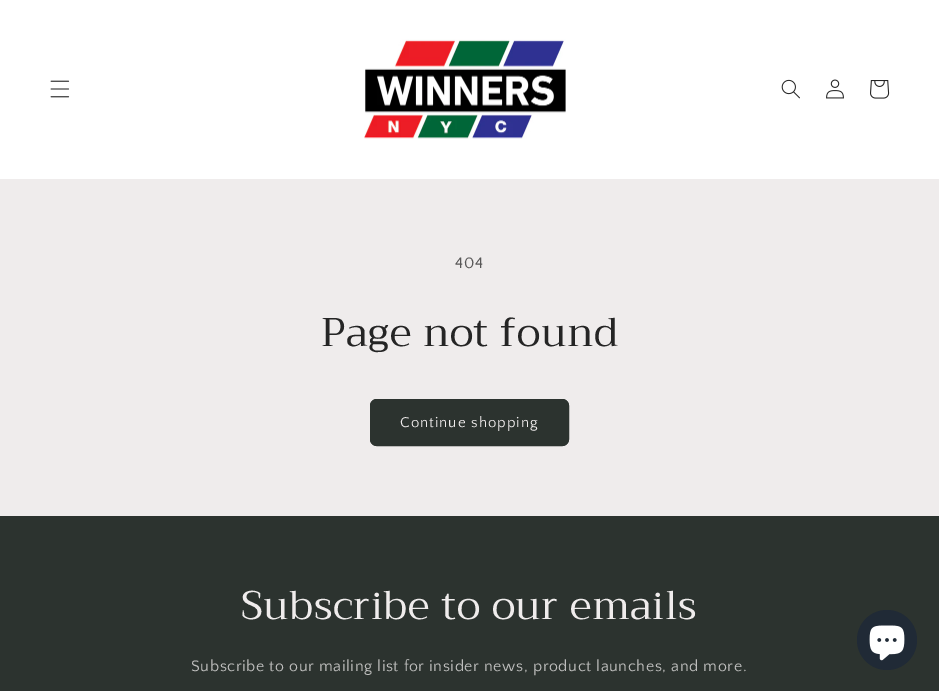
%!PS
<< /PageSize [939 691] >> setpagedevice
/roundrect { 5 dict begin { /r /h /w /y /x } { exch def } forall
  x r add y moveto x w add y 2 copy h add r arct x w add y h add x 1 index r arct
  x y h add x y r arct x y 2 copy exch w add exch r arct closepath end } def
/picture { 5 dict begin { /h /w /y /x /name } { exch def } forall
  gsave x y translate w h scale
  w h 8 [w 0 0 h 0 0] name (r) file false 3 colorimage grestore end } def
0 691 translate 1 -1 scale
4 setmiterlimit
0.937 0.925 0.925 setrgbcolor
0 0 939 691 rectfill
1 setgray
0 0 939 179 rectfill
(img1.rgb) 50 80 20 18 picture
(img2.rgb) 364 39 202 100 picture
(img3.rgb) 781 79 19 20 picture
(img4.rgb) 826 79 18 20 picture
(img5.rgb) 870 80 20 19 picture
/QuattrocentoSans-Regular [16 0 0 -16 0 0] selectfont
0.345 0.341 0.341 setrgbcolor
455 268 moveto 0.6 0 (404) ashow
/Trirong-Regular [40 0 0 -40 0 0] selectfont
0.145 setgray
321 346 moveto 0.6 0 (Page not found) ashow
0.173 0.2 0.184 setrgbcolor
370 399 199 47 7 roundrect fill
370.5 399.5 198 46 6.5 roundrect stroke
/QuattrocentoSans-Regular [15 0 0 -15 0 0] selectfont
0.937 0.925 0.925 setrgbcolor
400 427 moveto 1 0 (Continue shopping) ashow
0.173 0.2 0.184 setrgbcolor
0 516 939 175 rectfill
/Trirong-Regular [40 0 0 -40 0 0] selectfont
0.937 0.925 0.925 setrgbcolor
241 619 moveto 0.6 0 (Subscribe to our emails) ashow
/QuattrocentoSans-Regular [16 0 0 -16 0 0] selectfont
0.745 0.745 0.741 setrgbcolor
191 671 moveto 0.6 0 (Subscribe to our mailing list for insider news, product launches, and more.) ashow
0.125 0.165 0.212 setrgbcolor
newpath 887 640 30 0 360 arc closepath fill
(img6.rgb) 869 625 36 36 picture
showpage
